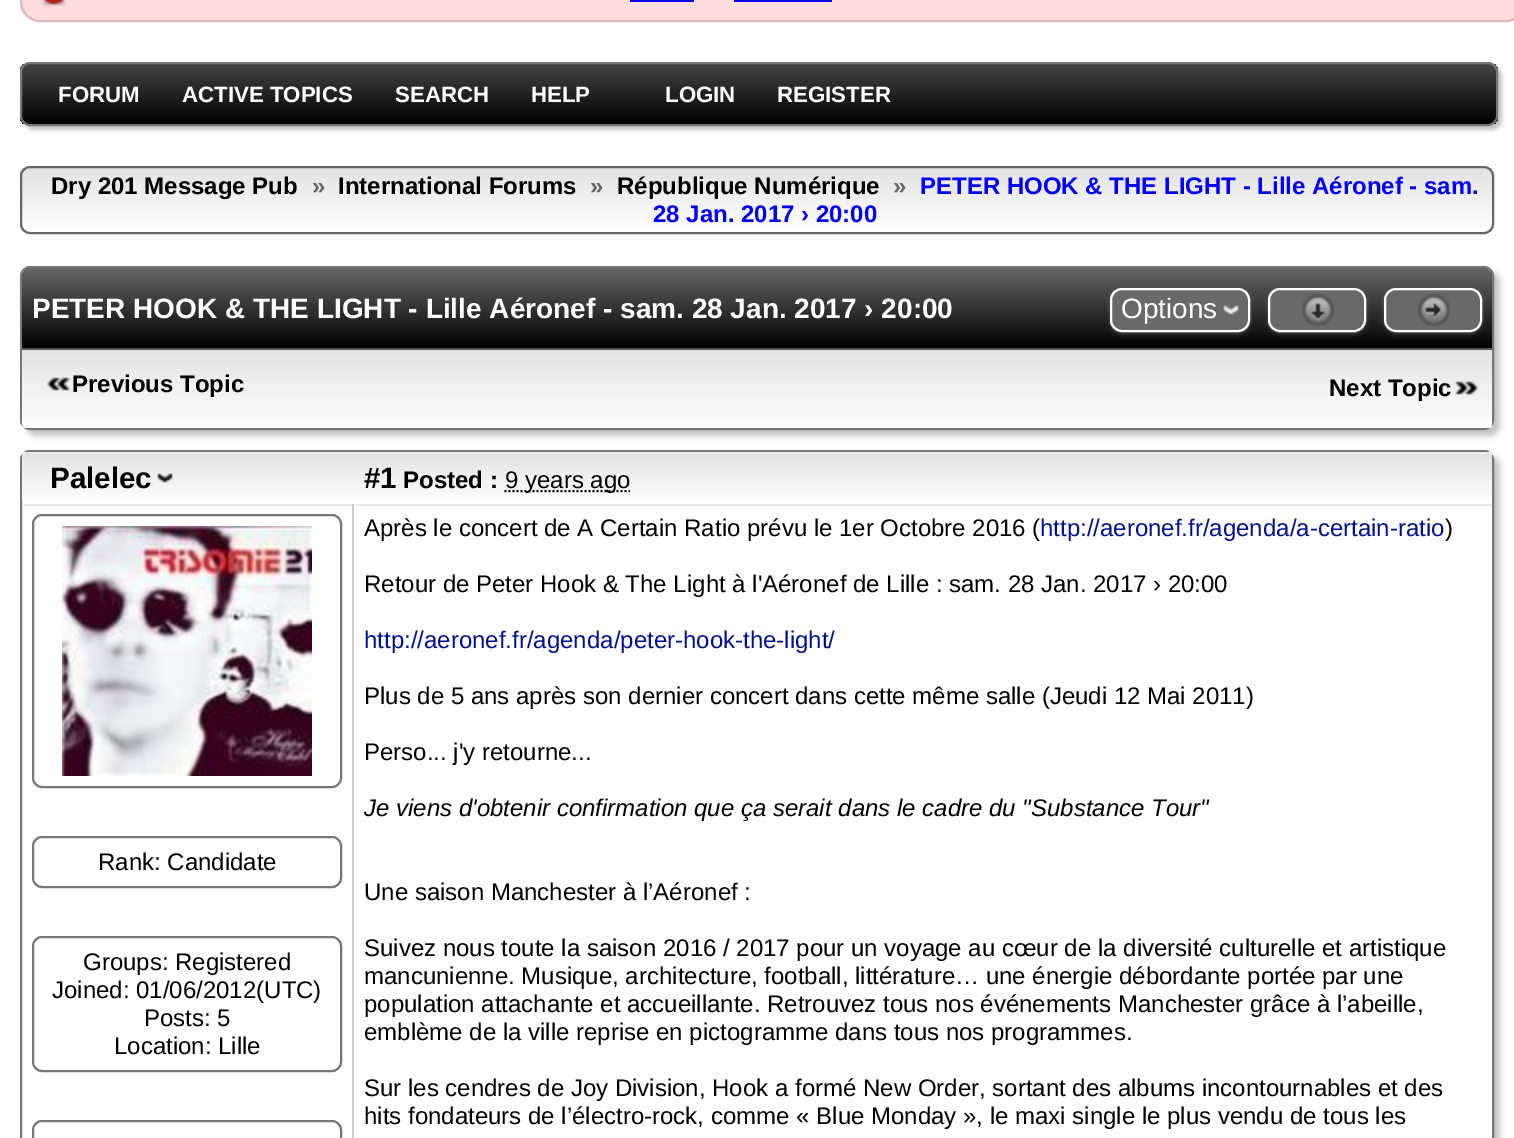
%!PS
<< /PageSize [1514 1138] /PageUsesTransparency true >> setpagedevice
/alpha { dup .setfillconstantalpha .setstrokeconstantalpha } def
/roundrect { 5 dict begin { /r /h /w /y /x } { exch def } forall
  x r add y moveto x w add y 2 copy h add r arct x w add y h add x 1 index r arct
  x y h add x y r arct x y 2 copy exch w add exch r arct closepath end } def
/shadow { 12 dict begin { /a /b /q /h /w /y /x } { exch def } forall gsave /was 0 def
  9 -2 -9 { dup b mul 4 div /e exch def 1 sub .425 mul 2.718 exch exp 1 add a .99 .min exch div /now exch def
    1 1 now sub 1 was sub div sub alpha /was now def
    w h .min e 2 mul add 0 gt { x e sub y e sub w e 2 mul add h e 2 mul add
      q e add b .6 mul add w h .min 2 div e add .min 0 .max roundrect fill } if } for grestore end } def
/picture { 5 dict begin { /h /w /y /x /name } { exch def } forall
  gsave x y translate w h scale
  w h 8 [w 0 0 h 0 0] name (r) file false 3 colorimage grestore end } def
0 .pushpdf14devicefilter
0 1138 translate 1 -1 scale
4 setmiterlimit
1 setgray
0 0 1514 1138 rectfill
1 0.867 0.867 setrgbcolor
20 -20 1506 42 20 roundrect fill
(img1.rgb) 41 0 26 6 picture
0.871 0.718 0.718 setrgbcolor
2 setlinewidth
21 -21 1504 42 19 roundrect stroke
0 0 0.933 setrgbcolor
630 0 64 2 rectfill
734 0 98 2 rectfill
0.765 setgray
24 66 1478 64 10 2 1 shadow
gsave
20 62 1478 64 10 roundrect clip newpath
gsave newpath 20 64 moveto 1498 64 lineto 1498 124 lineto 20 124 lineto closepath clip newpath
<< /ShadingType 2 /ColorSpace /DeviceRGB /Coords [22 64 22 124] /Extend [true true] /Function << /FunctionType 2 /Domain [0 1] /C0 [0.267 0.267 0.267] /C1 [0 0 0] /N 1 >> >> shfill grestore
grestore
0.467 setgray
21 63 1476 62 9 roundrect stroke
/LiberationSans-Bold [22.25 0 0 -22.25 0 0] selectfont
1 setgray
58 102 moveto (FORUM) show
182 102 moveto (ACTIVE TOPICS) show
395 102 moveto (SEARCH) show
531 102 moveto (HELP) show
665 102 moveto (LOGIN) show
777 102 moveto (REGISTER) show
gsave
20 166 1474 68 10 roundrect clip newpath
gsave newpath 20 168 moveto 1494 168 lineto 1494 232 lineto 20 232 lineto closepath clip newpath
<< /ShadingType 2 /ColorSpace /DeviceRGB /Coords [22 168 22 232] /Extend [true true] /Function << /FunctionType 2 /Domain [0 1] /C0 [0.89 0.89 0.89] /C1 [1 1 1] /N 1 >> >> shfill grestore
grestore
0.4 setgray
21 167 1472 66 9 roundrect stroke
/LiberationSans-Bold [24 0 0 -24 0 0] selectfont
0 setgray
51 194 moveto (Dry 201 Message Pub) show
0.4 setgray
312 194 moveto (») show
0 setgray
338 194 moveto (International Forums) show
0.4 setgray
590 194 moveto (») show
0 setgray
617 194 moveto (République Numérique) show
0.4 setgray
893 194 moveto (») show
0 0 1 setrgbcolor
920 194 moveto (PETER HOOK & THE LIGHT - Lille Aéronef - sam.) show
653 222 moveto (28 Jan. 2017 › 20:00) show
0.765 setgray
26 272 1474 164 10 3 1 shadow
0.467 setgray
21 267 1472 162 9 roundrect stroke
gsave newpath 32 268 moveto 1482 268 lineto 1487.5 268 1492 272.5 1492 278 curveto 1492 348 lineto 22 348 lineto 22 278 lineto 22 272.5 26.5 268 32 268 curveto closepath clip newpath
<< /ShadingType 2 /ColorSpace /DeviceRGB /Coords [22 268 22 348] /Extend [true true] /Function << /FunctionType 2 /Domain [0 1] /C0 [0.4 0.4 0.4] /C1 [0 0 0] /N 1 >> >> shfill grestore
/LiberationSans-Bold [28 0 0 -28 0 0] selectfont
1 setgray
32 318 moveto (PETER HOOK & THE LIGHT - Lille Aéronef - sam. 28 Jan. 2017 › 20:00) show
1110 290 140 44 12 2 0.2 shadow
0.412 setgray
1110 288 140 44 12 roundrect fill
(img2.rgb) 1223 305 16 10 picture
1 setgray
1111 289 138 42 11 roundrect stroke
/LiberationSans-Regular [28 0 0 -28 0 0] selectfont
1121 318 moveto (Options) show
1268 290 98 44 12 2 0.2 shadow
0.412 setgray
1269 289 96 42 11 roundrect gsave fill grestore
1 setgray
stroke
(img3.rgb) 1302 294 32 32 picture
1384 290 98 44 12 2 0.2 shadow
0.412 setgray
1385 289 96 42 11 roundrect gsave fill grestore
1 setgray
stroke
(img4.rgb) 1418 294 32 32 picture
0.89 setgray
22 420 1470 8 rectfill
gsave newpath 22 350 moveto 1492 350 lineto 1492 420 lineto 1492 424.5 1488.5 428 1484 428 curveto 30 428 lineto 25.5 428 22 424.5 22 420 curveto closepath clip newpath
<< /ShadingType 2 /ColorSpace /DeviceRGB /Coords [22 350 22 428] /Extend [true true] /Function << /FunctionType 2 /Domain [0 1] /C0 [0.89 0.89 0.89] /C1 [1 1 1] /N 1 >> >> shfill grestore
0.333 setgray
22 348 1470 2 rectfill
(img5.rgb) 47 377 24 14 picture
/LiberationSans-Bold [24 0 0 -24 0 0] selectfont
0 setgray
72 392 moveto (Previous Topic) show
(img6.rgb) 1455 381 24 14 picture
1329 396 moveto (Next Topic) show
gsave
newpath 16 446 moveto 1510 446 lineto 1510 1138 lineto 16 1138 lineto closepath 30 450 moveto 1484 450 lineto 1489.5 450 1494 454.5 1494 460 curveto 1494 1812 lineto 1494 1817.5 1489.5 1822 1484 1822 curveto 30 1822 lineto 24.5 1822 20 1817.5 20 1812 curveto 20 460 lineto 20 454.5 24.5 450 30 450 curveto closepath eoclip newpath
0.765 setgray
26 456 1474 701 10 3 1 shadow
grestore
0.467 setgray
21 451 1472 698 9 roundrect stroke
gsave newpath 22 454 moveto 1492 454 lineto 1492 500 lineto 22 500 lineto closepath clip newpath
<< /ShadingType 2 /ColorSpace /DeviceRGB /Coords [22 454 22 504] /Extend [true true] /Function << /FunctionType 2 /Domain [0 1] /C0 [0.89 0.89 0.89] /C1 [1 1 1] /N 1 >> >> shfill grestore
0.914 setgray
22 452 1470 2 rectfill
/LiberationSans-Bold [29.5 0 0 -29.5 0 0] selectfont
0 setgray
50 488 moveto (Palelec) show
(img7.rgb) 157 473 16 10 picture
364 488 moveto (#1) show
/LiberationSans-Bold [24 0 0 -24 0 0] selectfont
403 488 moveto (Posted :) show
[2 2] 0 setdash
newpath 504.5 491 moveto 630 491 lineto stroke
/LiberationSans-Regular [24 0 0 -24 0 0] selectfont
505 488 moveto (9 years ago) show
0.914 setgray
22 504 1470 2 rectfill
0.8 setgray
352 504 2 634 rectfill
0.467 setgray
[] 0 setdash
33 515 308 272 9 roundrect stroke
(img8.rgb) 62 526 250 250 picture
33 837 308 50 9 roundrect stroke
0 setgray
98 870 moveto (Rank: Candidate) show
0.467 setgray
33 937 308 134 9 roundrect stroke
0 setgray
83 970 moveto (Groups: Registered) show
52 998 moveto (Joined: 01/06/2012\(UTC\)) show
144 1026 moveto (Posts: 5) show
114 1054 moveto (Location: Lille) show
0.467 setgray
33 1121 308 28 9 roundrect stroke
0 setgray
364 536 moveto (Après le concert de A Certain Ratio prévu le 1er Octobre 2016 \() show
0 0.063 0.565 setrgbcolor
1040 536 moveto (http://aeronef.fr/agenda/a-certain-ratio) show
0 setgray
1445 536 moveto (\)) show
364 592 moveto (Retour de Peter Hook & The Light à l'Aéronef de Lille : sam. 28 Jan. 2017 › 20:00) show
0 0.063 0.565 setrgbcolor
364 648 moveto (http://aeronef.fr/agenda/peter-hook-the-light/) show
0 setgray
364 704 moveto (Plus de 5 ans après son dernier concert dans cette même salle \(Jeudi 12 Mai 2011\)) show
364 760 moveto (Perso... j'y retourne...) show
/LiberationSans-Italic [24 0 0 -24 0 0] selectfont
364 816 moveto (Je viens d'obtenir confirmation que ça serait dans le cadre du "Substance Tour") show
/LiberationSans-Regular [24 0 0 -24 0 0] selectfont
364 900 moveto (Une saison Manchester à l’Aéronef :) show
364 956 moveto (Suivez nous toute la saison 2016 / 2017 pour un voyage au cœur de la diversité culturelle et artistique) show
364 984 moveto (mancunienne. Musique, architecture, football, littérature… une énergie débordante portée par une) show
364 1012 moveto (population attachante et accueillante. Retrouvez tous nos événements Manchester grâce à l’abeille,) show
364 1040 moveto (emblème de la ville reprise en pictogramme dans tous nos programmes.) show
364 1096 moveto (Sur les cendres de Joy Division, Hook a formé New Order, sortant des albums incontournables et des) show
364 1124 moveto (hits fondateurs de l’électro-rock, comme « Blue Monday », le maxi single le plus vendu de tous les) show
.poppdf14devicefilter showpage
